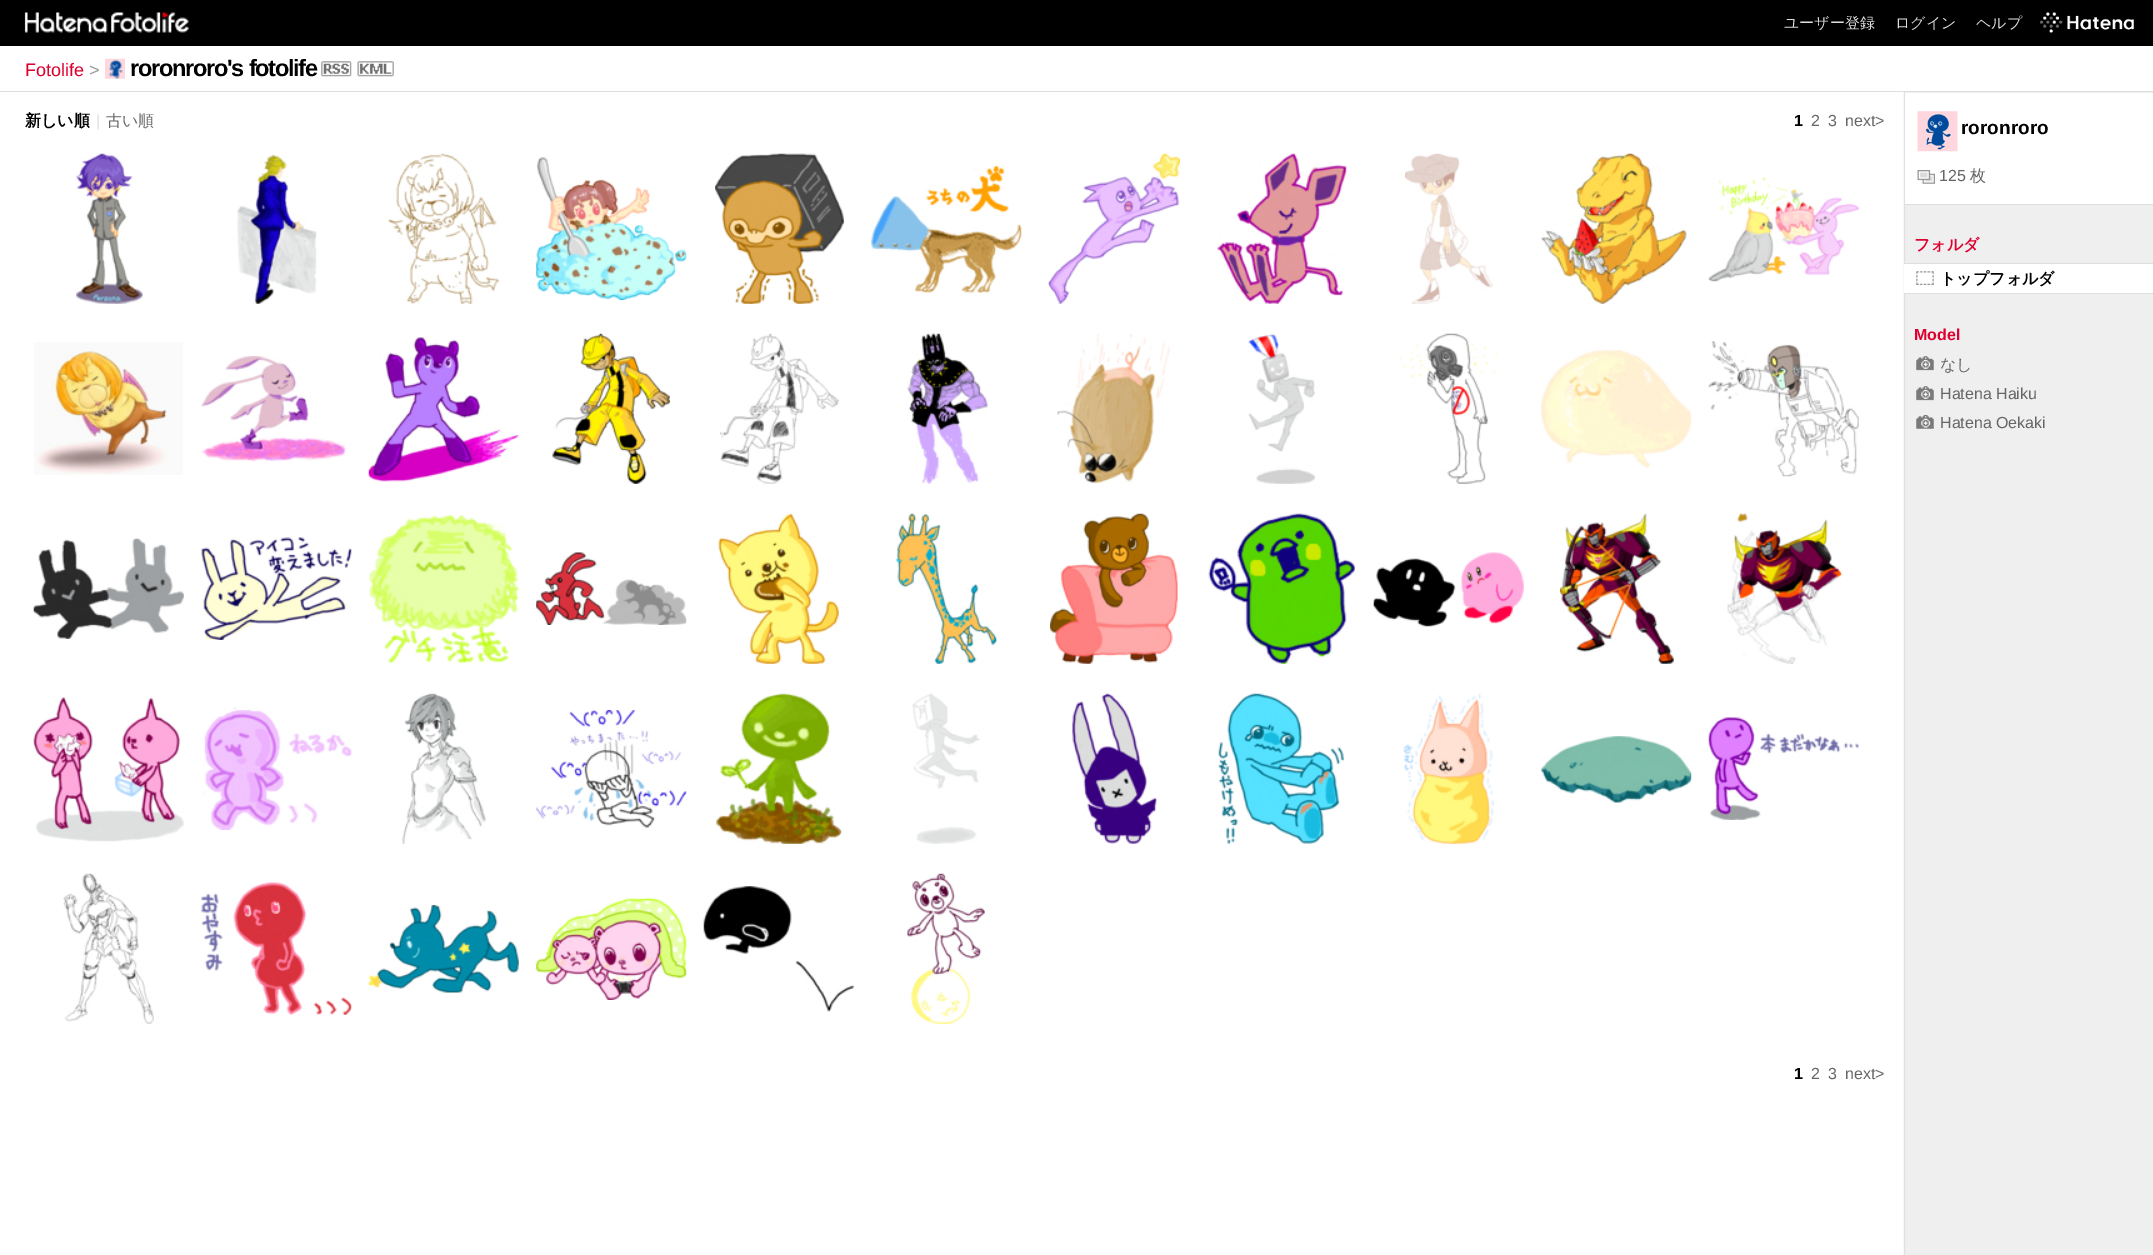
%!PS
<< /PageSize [2153 1255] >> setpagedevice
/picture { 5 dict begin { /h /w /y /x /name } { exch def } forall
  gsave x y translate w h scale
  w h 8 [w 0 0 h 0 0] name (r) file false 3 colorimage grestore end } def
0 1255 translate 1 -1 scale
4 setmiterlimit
1 setgray
0 0 2153 1255 rectfill
(img1.rgb) 1903 92 250 1163 picture
0 setgray
0 0 2153 46 rectfill
(img2.rgb) 24 12 84 21 picture
(img3.rgb) 111 12 78 21 picture
/WenQuanYiZenHei-Medium [15 0 0 -15 0 0] selectfont
0.871 setgray
1784 28 moveto (ユーザー登録) show
1895 28 moveto (ログイン) show
1976 28 moveto (ヘルプ) show
(img4.rgb) 2040 12 94 21 picture
0 91 2153 1 rectfill
/LiberationSans-Regular [18 0 0 -18 0 0] selectfont
0.871 0 0.184 setrgbcolor
25 76 moveto (Fotolife) show
0.6 setgray
89 76 moveto (>) show
(img5.rgb) 105 58 20 21 picture
/LiberationSans-Bold [23.5 0 0 -23.5 0 0] selectfont
0 setgray
130 76 moveto -1.25 0 (roronroro's fotolife) ashow
(img6.rgb) 321 61 31 16 picture
(img7.rgb) 357 61 37 16 picture
/WenQuanYiZenHei-Bold [16 0 0 -16 0 0] selectfont
25 126 moveto (新しい順) show
/LiberationSans-Regular [16 0 0 -16 0 0] selectfont
0.871 setgray
96 126 moveto (|) show
/WenQuanYiZenHei-Medium [16 0 0 -16 0 0] selectfont
0.4 setgray
106 126 moveto (古い順) show
/LiberationSans-Bold [16 0 0 -16 0 0] selectfont
0 setgray
1794 126 moveto (1) show
/LiberationSans-Regular [16 0 0 -16 0 0] selectfont
0.4 setgray
1811 126 moveto (2) show
1828 126 moveto (3) show
1845 126 moveto (next>) show
(img8.rgb) 76 153 67 151 picture
(img9.rgb) 237 154 80 150 picture
(img10.rgb) 388 153 111 151 picture
(img11.rgb) 536 157 151 143 picture
(img12.rgb) 715 153 129 151 picture
(img13.rgb) 871 166 151 127 picture
(img14.rgb) 1048 153 132 151 picture
(img15.rgb) 1217 153 130 151 picture
(img16.rgb) 1405 153 88 151 picture
(img17.rgb) 1541 153 146 151 picture
(img18.rgb) 1708 177 151 105 picture
(img19.rgb) 34 342 149 133 picture
(img20.rgb) 201 356 145 106 picture
(img21.rgb) 368 337 151 145 picture
(img22.rgb) 552 333 118 151 picture
(img23.rgb) 720 333 119 151 picture
(img24.rgb) 907 333 81 151 picture
(img25.rgb) 1057 333 113 151 picture
(img26.rgb) 1248 333 67 151 picture
(img27.rgb) 1400 333 98 151 picture
(img28.rgb) 1541 350 151 118 picture
(img29.rgb) 1708 341 151 136 picture
(img30.rgb) 33 538 151 101 picture
(img31.rgb) 201 537 151 103 picture
(img32.rgb) 368 515 151 148 picture
(img33.rgb) 536 552 151 73 picture
(img34.rgb) 718 513 121 151 picture
(img35.rgb) 896 513 101 151 picture
(img36.rgb) 1050 513 128 151 picture
(img37.rgb) 1208 513 147 151 picture
(img38.rgb) 1373 552 151 75 picture
(img39.rgb) 1560 513 114 151 picture
(img40.rgb) 1727 513 115 151 picture
(img41.rgb) 33 697 151 145 picture
(img42.rgb) 202 707 150 123 picture
(img43.rgb) 401 693 86 151 picture
(img44.rgb) 536 710 151 118 picture
(img45.rgb) 716 693 126 151 picture
(img46.rgb) 912 693 68 151 picture
(img47.rgb) 1072 693 85 151 picture
(img48.rgb) 1218 693 126 151 picture
(img49.rgb) 1403 693 91 151 picture
(img50.rgb) 1541 736 151 67 picture
(img51.rgb) 1708 717 151 103 picture
(img52.rgb) 63 873 91 151 picture
(img53.rgb) 201 882 151 133 picture
(img54.rgb) 368 905 151 88 picture
(img55.rgb) 536 898 151 102 picture
(img56.rgb) 703 886 151 126 picture
(img57.rgb) 907 873 78 151 picture
/LiberationSans-Bold [16 0 0 -16 0 0] selectfont
0 setgray
1794 1079 moveto (1) show
/LiberationSans-Regular [16 0 0 -16 0 0] selectfont
0.4 setgray
1811 1079 moveto (2) show
1828 1079 moveto (3) show
1845 1079 moveto (next>) show
1 setgray
1905 93 248 111 rectfill
0.871 setgray
1905 204 248 1 rectfill
(img58.rgb) 1917 111 41 41 picture
/LiberationSans-Bold [19 0 0 -19 0 0] selectfont
0 setgray
1961 134 moveto (roronroro) show
(img59.rgb) 1917 170 18 14 picture
/LiberationSans-Regular [16 0 0 -16 0 0] selectfont
0.4 setgray
1939 181 moveto (125) show
/WenQuanYiZenHei-Medium [16 0 0 -16 0 0] selectfont
1970 181 moveto (枚) show
/WenQuanYiZenHei-Bold [16 0 0 -16 0 0] selectfont
0.871 0 0.184 setrgbcolor
1914 250 moveto (フォルダ) show
1 setgray
1904 264 249 29 rectfill
0.871 setgray
1904 263 249 1 rectfill
1904 293 249 1 rectfill
(img60.rgb) 1916 271 18 14 picture
0 setgray
1940 284 moveto (トップフォルダ) show
/LiberationSans-Bold [16 0 0 -16 0 0] selectfont
0.871 0 0.184 setrgbcolor
1914 340 moveto (Model) show
(img61.rgb) 1916 356 18 15 picture
/WenQuanYiZenHei-Medium [16 0 0 -16 0 0] selectfont
0.4 setgray
1940 370 moveto (なし) show
(img61.rgb) 1916 386 18 15 picture
/LiberationSans-Regular [16 0 0 -16 0 0] selectfont
1940 399 moveto (Hatena Haiku) show
(img62.rgb) 1916 415 18 14 picture
1940 428 moveto (Hatena Oekaki) show
showpage
